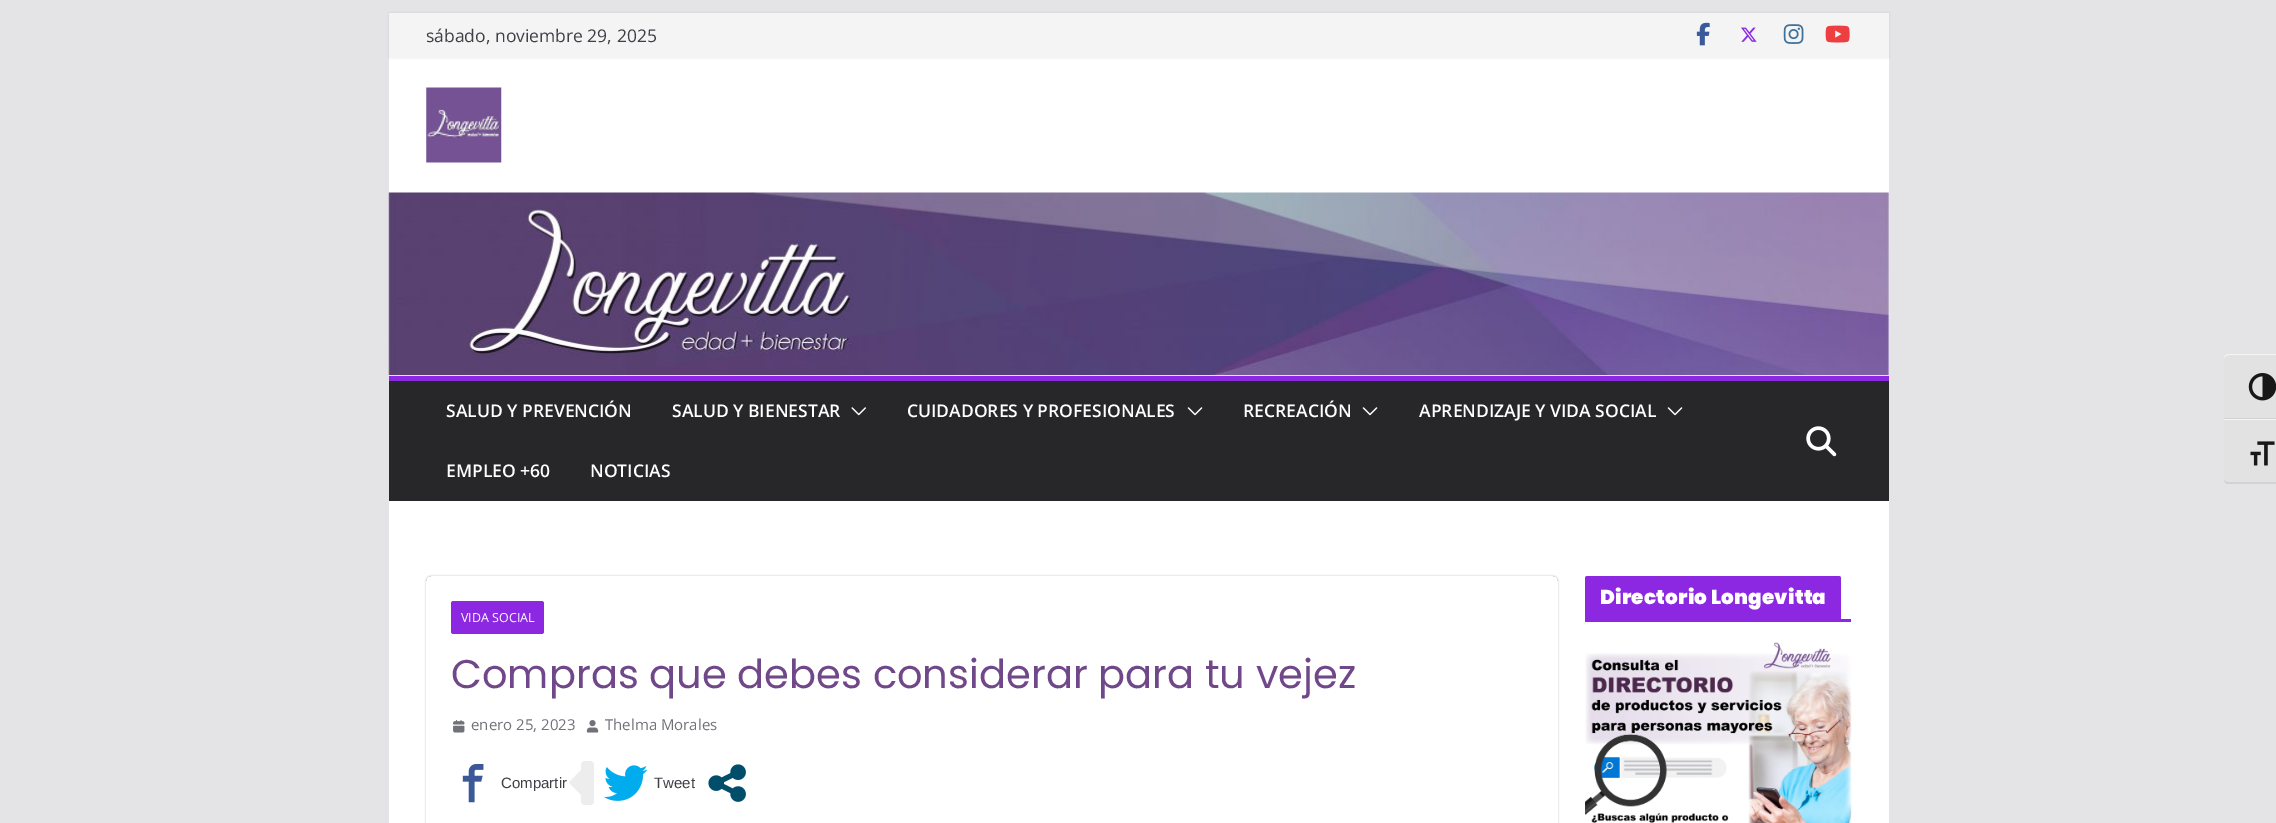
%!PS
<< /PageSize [2276 823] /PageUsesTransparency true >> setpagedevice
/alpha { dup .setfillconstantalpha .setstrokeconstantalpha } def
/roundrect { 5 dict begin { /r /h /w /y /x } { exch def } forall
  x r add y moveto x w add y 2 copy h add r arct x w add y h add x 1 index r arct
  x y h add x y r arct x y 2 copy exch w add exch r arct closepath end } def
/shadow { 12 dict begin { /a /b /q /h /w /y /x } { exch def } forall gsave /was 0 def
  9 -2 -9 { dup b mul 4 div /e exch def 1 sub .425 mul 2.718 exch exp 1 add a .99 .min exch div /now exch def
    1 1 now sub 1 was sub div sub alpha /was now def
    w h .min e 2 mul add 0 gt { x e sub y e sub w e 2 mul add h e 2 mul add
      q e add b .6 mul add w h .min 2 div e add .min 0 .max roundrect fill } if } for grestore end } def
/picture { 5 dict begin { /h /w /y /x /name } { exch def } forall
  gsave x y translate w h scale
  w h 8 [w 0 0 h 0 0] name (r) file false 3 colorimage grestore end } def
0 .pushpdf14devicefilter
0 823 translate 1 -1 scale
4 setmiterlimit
0.894 0.894 0.906 setrgbcolor
0 0 2276 823 rectfill
1 setgray
389 58 1500 317 rectfill
0 setgray
389 13 1500 45 0 1 0.1 shadow
0.957 0.957 0.961 setrgbcolor
389 13 1500 45 rectfill
/OpenSans-Regular [17.5 0 0 -17.5 0 0] selectfont
0.247 0.247 0.275 setrgbcolor
426 42 moveto (sábado, noviembre 29, 2025) show
(img1.rgb) 1696 22 14 24 picture
(img2.rgb) 1741 27 16 15 picture
(img3.rgb) 1783 24 21 20 picture
(img4.rgb) 1825 25 25 18 picture
(img5.rgb) 426 87 76 76 picture
(img6.rgb) 388 192 1501 183 picture
0.153 0.153 0.165 setrgbcolor
389 381 1500 120 rectfill
0.549 0.157 0.886 setrgbcolor
389 376 1500 5 rectfill
/OpenSans-SemiBold [17.5 0 0 -17.5 0 0] selectfont
1 setgray
446 417 moveto (SALUD Y PREVENCIÓN) show
672 417 moveto (SALUD Y BIENESTAR) show
(img7.rgb) 851 407 15 9 picture
907 417 moveto (CUIDADORES Y PROFESIONALES) show
(img8.rgb) 1187 407 16 9 picture
1243 417 moveto (RECREACIÓN) show
(img8.rgb) 1362 407 16 9 picture
1419 417 moveto (APRENDIZAJE Y VIDA SOCIAL) show
(img8.rgb) 1667 407 16 9 picture
446 477 moveto (EMPLEO +60) show
590 477 moveto (NOTICIAS) show
(img9.rgb) 1806 426 31 31 picture
389 501 1500 322 rectfill
0.549 0.157 0.886 setrgbcolor
1585 619 266 3 rectfill
newpath 1587.5 576 moveto 1838.5 576 lineto 1840 576 1841 577 1841 578.5 curveto 1841 619 lineto 1585 619 lineto 1585 578.5 lineto 1585 577 1586 576 1587.5 576 curveto closepath fill
/Poppins-Black [20 0 0 -20 0 0] selectfont
1 setgray
1600 604 moveto 0.2 0 (Directorio Longevitta) ashow
(img10.rgb) 1585 642 267 181 picture
gsave
newpath 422 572 moveto 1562 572 lineto 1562 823 lineto 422 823 lineto closepath 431 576 moveto 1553 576 lineto 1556 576 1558 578 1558 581 curveto 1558 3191 lineto 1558 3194 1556 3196 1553 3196 curveto 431 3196 lineto 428 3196 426 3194 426 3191 curveto 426 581 lineto 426 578 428 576 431 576 curveto closepath eoclip newpath
0 setgray
426 576 1132 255 5 1 0.24 shadow
grestore
0.549 0.157 0.886 setrgbcolor
451 601 93 33 2.5 roundrect fill
/OpenSans-Regular [12.5 0 0 -12.5 0 0] selectfont
1 setgray
461 622 moveto (VIDA SOCIAL) show
/Poppins-Regular [40 0 0 -40 0 0] selectfont
0.439 0.278 0.537 setrgbcolor
451 688 moveto (Compras que debes considerar para tu vejez) show
(img11.rgb) 453 720 12 13 picture
/OpenSans-Regular [15 0 0 -15 0 0] selectfont
0.443 0.443 0.478 setrgbcolor
471 730 moveto (enero 25, 2023) show
(img12.rgb) 586 720 13 13 picture
605 730 moveto (Thelma Morales) show
(img13.rgb) 462 764 22 39 picture
/LiberationSans-Regular [15 0 0 -15 0 0] selectfont
0.247 0.247 0.275 setrgbcolor
501 788 moveto (Compartir) show
0.929 setgray
581 761 13 44 4 roundrect fill
newpath 581 770 moveto 581 795 lineto 569 782.5 lineto closepath fill
(img14.rgb) 604 765 44 36 picture
0.247 0.247 0.275 setrgbcolor
654 788 moveto (Tweet) show
(img15.rgb) 708 764 38 38 picture
0.886 setgray
newpath 2229 354 moveto 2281 354 lineto 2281 419 lineto 2224 419 lineto 2224 359 lineto 2224 356 2226 354 2229 354 curveto closepath fill
0.961 setgray
newpath 2229 354 moveto 2226 354 2224 356 2224 359 curveto 2224 357 2226 355 2229 355 curveto 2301 355 lineto 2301 354 lineto closepath fill
0.824 setgray
2224 418 52 1 rectfill
(img16.rgb) 2248 373 28 28 picture
0.886 setgray
newpath 2224 419 moveto 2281 419 lineto 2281 484 lineto 2229 484 lineto 2226 484 2224 482 2224 479 curveto closepath fill
0.961 setgray
2224 419 52 1 rectfill
0.824 setgray
newpath 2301 484 moveto 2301 482 lineto 2229 482 lineto 2226 482 2224 481 2224 479 curveto 2224 481 2225 483 2227 484 curveto closepath fill
(img17.rgb) 2250 441 25 25 picture
.poppdf14devicefilter showpage
